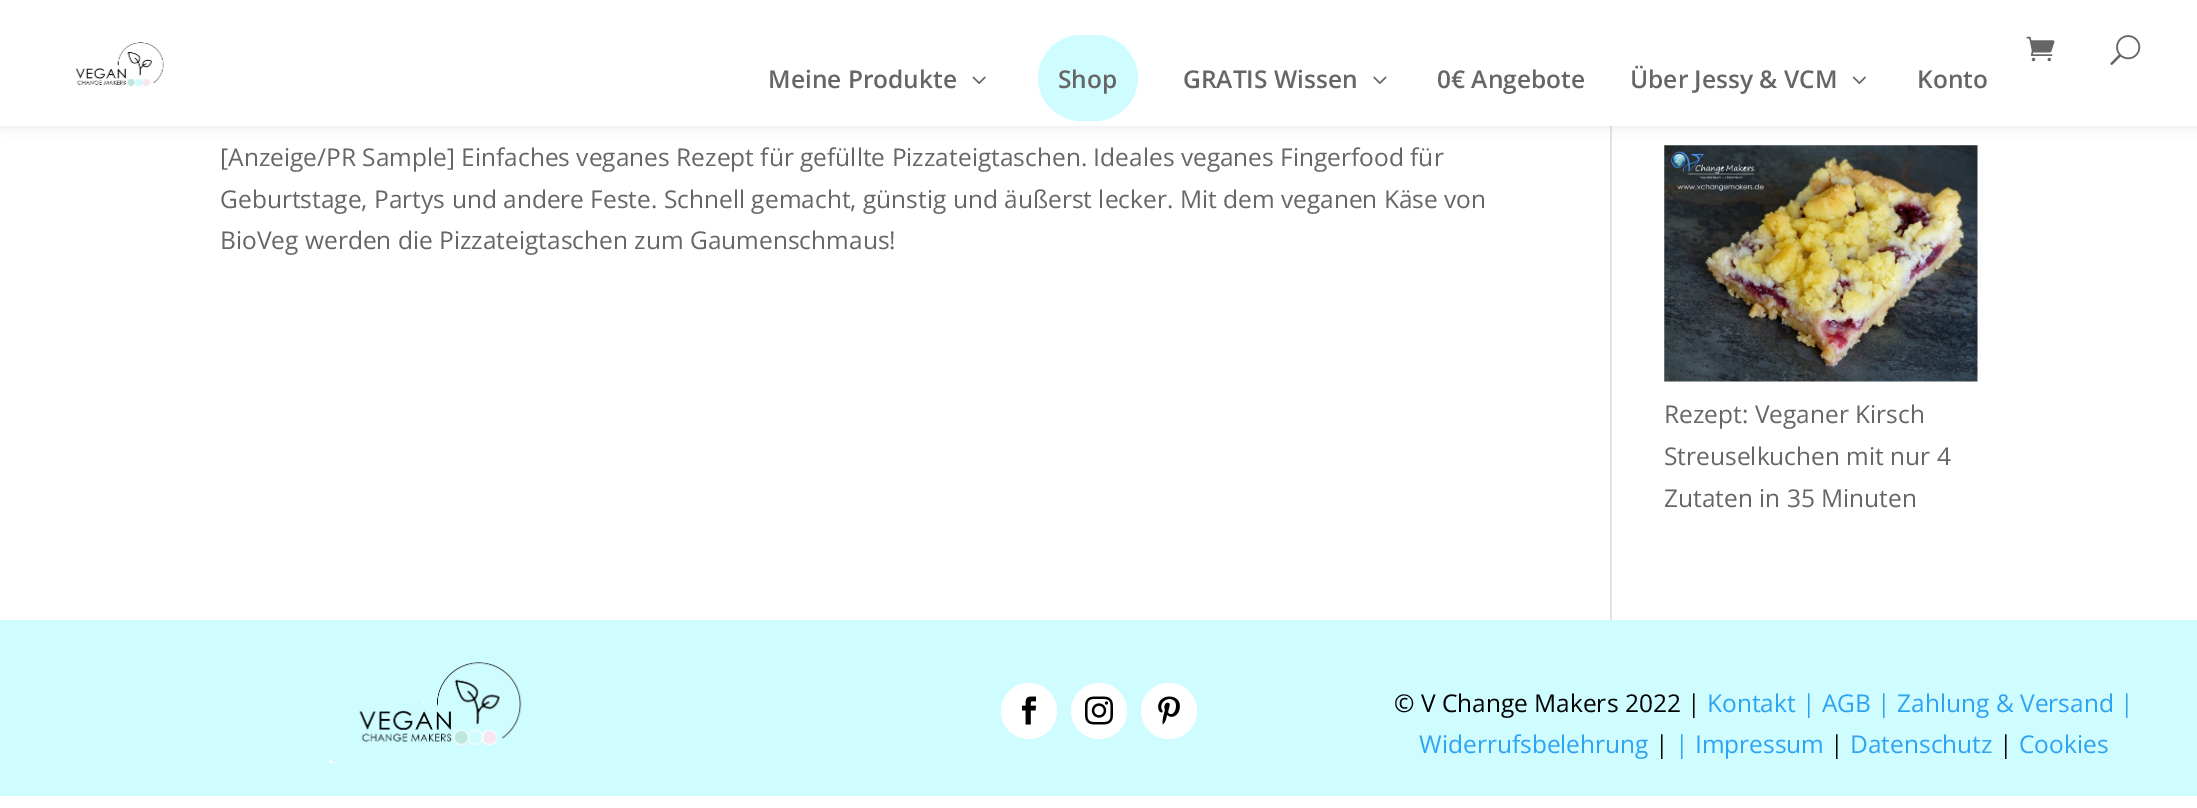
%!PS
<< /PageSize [2197 808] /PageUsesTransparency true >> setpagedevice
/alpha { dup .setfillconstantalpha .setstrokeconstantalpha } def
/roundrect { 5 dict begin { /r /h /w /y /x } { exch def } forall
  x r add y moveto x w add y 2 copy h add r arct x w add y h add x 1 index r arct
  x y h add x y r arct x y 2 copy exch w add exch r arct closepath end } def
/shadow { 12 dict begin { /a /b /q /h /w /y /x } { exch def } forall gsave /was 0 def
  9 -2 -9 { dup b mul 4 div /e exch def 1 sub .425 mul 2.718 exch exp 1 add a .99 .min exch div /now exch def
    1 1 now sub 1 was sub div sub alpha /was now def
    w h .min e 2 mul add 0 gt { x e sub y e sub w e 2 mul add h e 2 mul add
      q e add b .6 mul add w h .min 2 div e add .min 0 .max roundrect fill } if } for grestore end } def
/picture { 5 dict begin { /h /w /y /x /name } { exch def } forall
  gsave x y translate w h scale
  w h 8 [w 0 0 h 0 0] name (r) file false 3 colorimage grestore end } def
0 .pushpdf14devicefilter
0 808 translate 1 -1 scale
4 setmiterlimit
1 setgray
0 0 2197 808 rectfill
0.886 setgray
1610 126 2 494 rectfill
0 setgray
0 0 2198 126 0 6 0.1 shadow
1 setgray
0 0 2197 126 rectfill
(img1.rgb) 75 42 89 45 picture
(img2.rgb) 2026 36 29 26 picture
(img3.rgb) 2110 35 31 30 picture
/OpenSans-SemiBold [24.5 0 0 -24.5 0 0] selectfont
0.4 setgray
768 88 moveto (Meine Produkte) show
(img4.rgb) 972 76 14 8 picture
0.808 0.988 1 setrgbcolor
1040 37 96 82 41 roundrect gsave fill grestore
4 setlinewidth
stroke
0.4 setgray
1058 88 moveto (Shop) show
1183 88 moveto (GRATIS Wissen) show
(img5.rgb) 1373 76 14 8 picture
1437 88 moveto (0€ Angebote) show
1630 88 moveto (Über Jessy & VCM) show
(img6.rgb) 1852 76 14 8 picture
1917 88 moveto (Konto) show
/OpenSans-Regular [24.5 0 0 -24.5 0 0] selectfont
220 166 moveto ([Anzeige/PR Sample] Einfaches veganes Rezept für gefüllte Pizzateigtaschen. Ideales veganes Fingerfood für) show
220 208 moveto (Geburtstage, Partys und andere Feste. Schnell gemacht, günstig und äußerst lecker. Mit dem veganen Käse von) show
220 249 moveto (BioVeg werden die Pizzateigtaschen zum Gaumenschmaus!) show
(img7.rgb) 1664 145 314 237 picture
1664 423 moveto (Rezept: Veganer Kirsch) show
1664 465 moveto (Streuselkuchen mit nur 4) show
1664 507 moveto (Zutaten in 35 Minuten) show
0.808 0.988 1 setrgbcolor
0 620 2197 176 rectfill
(img8.rgb) 329 662 193 101 picture
1 setgray
newpath 1029 711 28 0 360 arc closepath fill
(img9.rgb) 1022 696 15 29 picture
newpath 1099 711 28 0 360 arc closepath fill
(img10.rgb) 1085 696 28 29 picture
newpath 1169 711 28 0 360 arc closepath fill
(img11.rgb) 1158 696 22 29 picture
0 setgray
1394 712 moveto (© V Change Makers 2022 |) show
0.18 0.639 0.949 setrgbcolor
1707 712 moveto (Kontakt | AGB | Zahlung & Versand |) show
1419 753 moveto (Widerrufsbelehrung) show
0 setgray
1655 753 moveto (|) show
0.18 0.639 0.949 setrgbcolor
1675 753 moveto (| Impressum) show
0 setgray
1830 753 moveto (|) show
0.18 0.639 0.949 setrgbcolor
1850 753 moveto (Datenschutz) show
0 setgray
1999 753 moveto (|) show
0.18 0.639 0.949 setrgbcolor
2019 753 moveto (Cookies) show
.poppdf14devicefilter showpage
